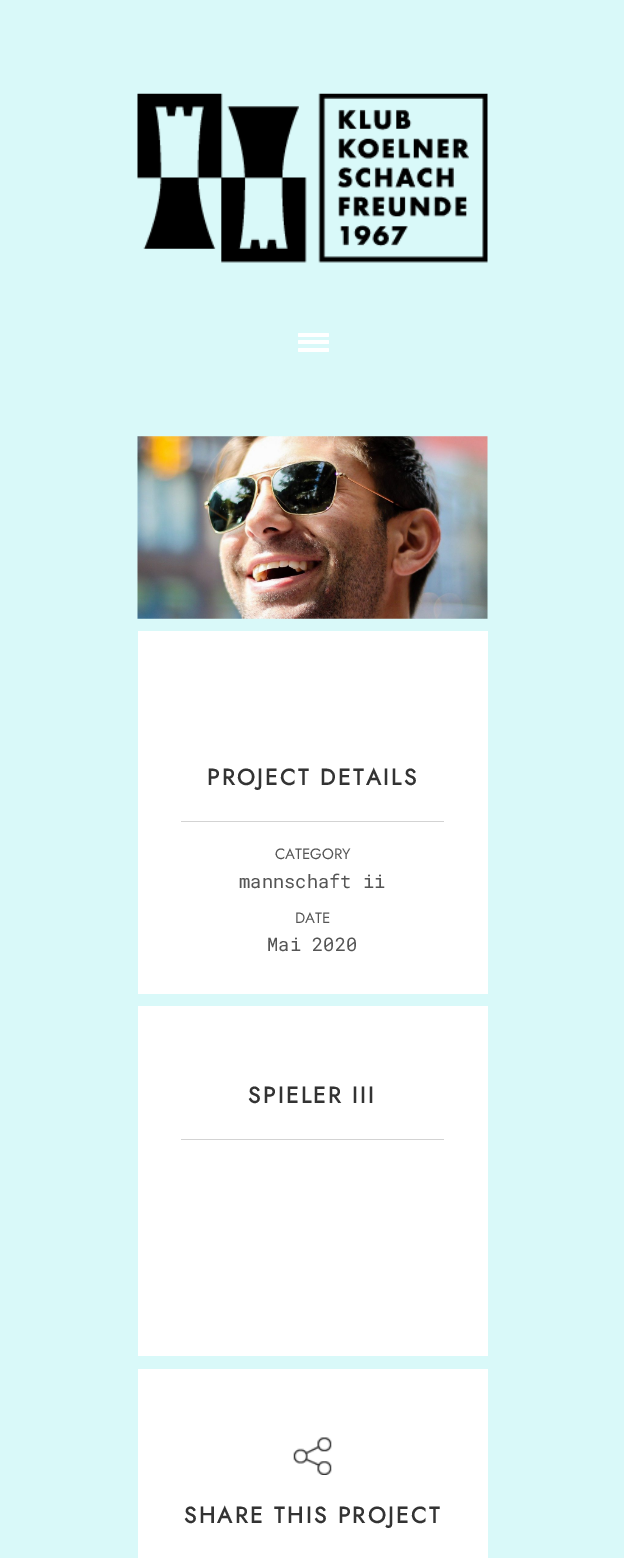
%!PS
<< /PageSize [624 1558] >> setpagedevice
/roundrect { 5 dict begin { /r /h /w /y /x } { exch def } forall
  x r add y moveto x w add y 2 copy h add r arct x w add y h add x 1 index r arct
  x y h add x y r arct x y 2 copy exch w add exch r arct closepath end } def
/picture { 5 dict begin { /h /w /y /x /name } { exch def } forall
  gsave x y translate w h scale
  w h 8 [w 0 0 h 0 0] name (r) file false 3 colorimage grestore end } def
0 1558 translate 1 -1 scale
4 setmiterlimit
0.851 0.976 0.976 setrgbcolor
0 0 624 1558 rectfill
(img1.rgb) 137 93 351 170 picture
1 setgray
298 333 31 4 1 roundrect fill
298 340 31 4 1 roundrect fill
298 348 31 4 1 roundrect fill
(img2.rgb) 137 436 351 183 picture
138 631 350 363 rectfill
/Jost-Bold [22.5 0 0 -22.5 0 0] selectfont
0.2 setgray
207 785 moveto 2.5 0 (PROJECT DETAILS) ashow
0.827 setgray
181 821 263 1 rectfill
/Jost-Regular [15 0 0 -15 0 0] selectfont
0.333 setgray
275 859 moveto (CATEGORY) show
/RobotoMono-Regular [18.75 0 0 -18.75 0 0] selectfont
239 888 moveto (mannschaft ii) show
/Jost-Regular [15 0 0 -15 0 0] selectfont
295 923 moveto (DATE) show
/RobotoMono-Regular [18.75 0 0 -18.75 0 0] selectfont
267 951 moveto (Mai 2020) show
1 setgray
138 1006 350 350 rectfill
/Jost-Bold [22.5 0 0 -22.5 0 0] selectfont
0.2 setgray
248 1103 moveto 2.5 0 (SPIELER III) ashow
0.827 setgray
181 1139 263 1 rectfill
1 setgray
138 1369 350 189 rectfill
(img3.rgb) 293 1437 39 38 picture
0.2 setgray
184 1523 moveto 2.5 0 (SHARE THIS PROJECT) ashow
showpage
